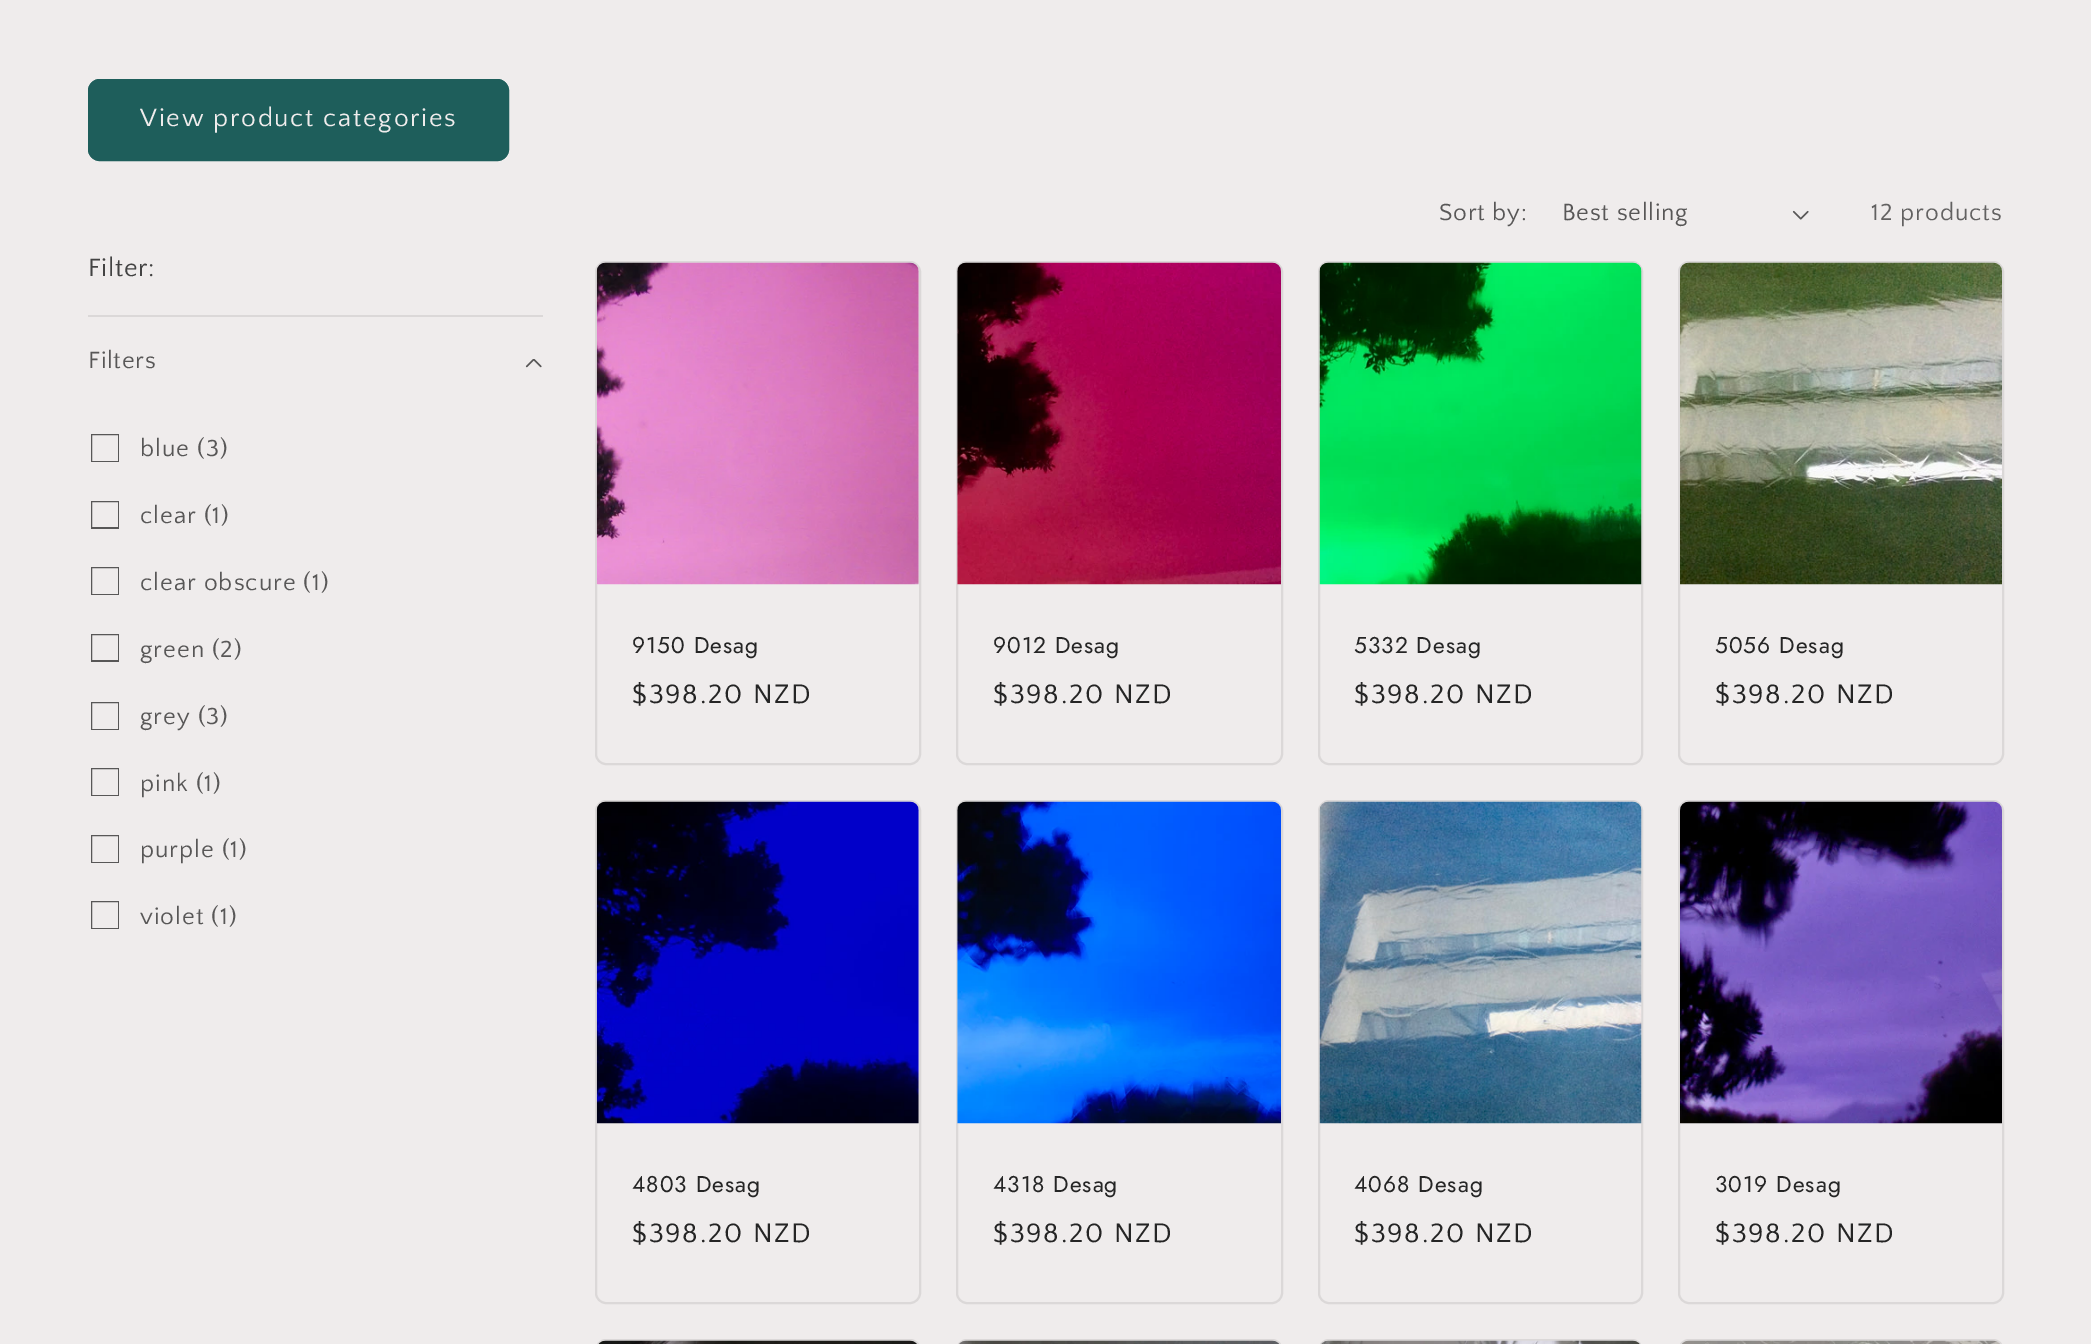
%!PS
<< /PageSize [2091 1344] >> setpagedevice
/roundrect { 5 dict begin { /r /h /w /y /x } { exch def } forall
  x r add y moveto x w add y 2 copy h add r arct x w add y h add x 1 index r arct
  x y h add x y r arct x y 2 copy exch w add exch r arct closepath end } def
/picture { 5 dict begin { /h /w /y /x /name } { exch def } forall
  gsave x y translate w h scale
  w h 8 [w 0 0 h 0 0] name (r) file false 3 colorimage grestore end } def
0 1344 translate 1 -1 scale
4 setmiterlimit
0.937 0.925 0.925 setrgbcolor
0 0 2091 1344 rectfill
0.118 0.369 0.357 setrgbcolor
88 79 421 82 12 roundrect fill
2 setlinewidth
89 80 419 80 11 roundrect stroke
/QuattrocentoSans-Regular [26.25 0 0 -26.25 0 0] selectfont
0.937 0.925 0.925 setrgbcolor
140 126 moveto 1.75 0 (View product categories) ashow
/QuattrocentoSans-Regular [24.5 0 0 -24.5 0 0] selectfont
0.345 0.341 0.341 setrgbcolor
1439 220 moveto 0.75 0 (Sort by:) ashow
1562 220 moveto 0.75 0 (Best selling) ashow
(img1.rgb) 1792 210 17 10 picture
0.384 0.38 0.38 setrgbcolor
1871 220 moveto 1 0 (12 products) ashow
/QuattrocentoSans-Regular [26.25 0 0 -26.25 0 0] selectfont
0.263 setgray
88 276 moveto 0.75 0 (Filter:) ashow
0.859 0.847 0.847 setrgbcolor
88 315 455 2 rectfill
/QuattrocentoSans-Regular [24.5 0 0 -24.5 0 0] selectfont
0.345 0.341 0.341 setrgbcolor
88 368 moveto 0.75 0 (Filters) ashow
(img2.rgb) 525 359 17 9 picture
gsave
91 434 28 28 rectclip
91 434 28 28 rectstroke
grestore
140 456 moveto 1 0 (blue \(3\)) ashow
gsave
91 501 28 28 rectclip
91 501 28 27 rectstroke
grestore
140 523 moveto 1 0 (clear \(1\)) ashow
gsave
91 567 28 28 rectclip
91 567 28 28 rectstroke
grestore
140 590 moveto 1 0 (clear obscure \(1\)) ashow
gsave
91 634 28 28 rectclip
91 634 28 27 rectstroke
grestore
140 657 moveto 1 0 (green \(2\)) ashow
gsave
91 702 28 28 rectclip
91 702 28 28 rectstroke
grestore
140 724 moveto 1 0 (grey \(3\)) ashow
gsave
91 768 28 28 rectclip
91 768 28 28 rectstroke
grestore
140 791 moveto 1 0 (pink \(1\)) ashow
gsave
91 835 28 28 rectclip
91 835 28 28 rectstroke
grestore
140 857 moveto 1 0 (purple \(1\)) ashow
gsave
91 901 28 28 rectclip
91 901 28 28 rectstroke
grestore
140 924 moveto 1 0 (violet \(1\)) ashow
0.859 0.847 0.847 setrgbcolor
596 262 324 502 10 roundrect stroke
(img3.rgb) 596 262 323 323 picture
/Jost-Regular [22.75 0 0 -22.75 0 0] selectfont
0.145 setgray
632 653 moveto 1 0 (9150 Desag) ashow
/QuattrocentoSans-Regular [28 0 0 -28 0 0] selectfont
632 703 moveto 1.75 0 ($398.20 NZD) ashow
0.859 0.847 0.847 setrgbcolor
957 262 325 502 10 roundrect stroke
(img4.rgb) 957 262 324 323 picture
/Jost-Regular [22.75 0 0 -22.75 0 0] selectfont
0.145 setgray
993 653 moveto 1 0 (9012 Desag) ashow
/QuattrocentoSans-Regular [28 0 0 -28 0 0] selectfont
993 703 moveto 1.75 0 ($398.20 NZD) ashow
0.859 0.847 0.847 setrgbcolor
1319 262 323 502 10 roundrect stroke
(img5.rgb) 1319 262 323 323 picture
/Jost-Regular [22.75 0 0 -22.75 0 0] selectfont
0.145 setgray
1354 653 moveto 1 0 (5332 Desag) ashow
/QuattrocentoSans-Regular [28 0 0 -28 0 0] selectfont
1354 703 moveto 1.75 0 ($398.20 NZD) ashow
0.859 0.847 0.847 setrgbcolor
1679 262 324 502 10 roundrect stroke
(img6.rgb) 1680 262 322 323 picture
/Jost-Regular [22.75 0 0 -22.75 0 0] selectfont
0.145 setgray
1715 653 moveto 1 0 (5056 Desag) ashow
/QuattrocentoSans-Regular [28 0 0 -28 0 0] selectfont
1715 703 moveto 1.75 0 ($398.20 NZD) ashow
0.859 0.847 0.847 setrgbcolor
596 801 324 502 10 roundrect stroke
(img7.rgb) 596 801 323 323 picture
/Jost-Regular [22.75 0 0 -22.75 0 0] selectfont
0.145 setgray
632 1192 moveto 1 0 (4803 Desag) ashow
/QuattrocentoSans-Regular [28 0 0 -28 0 0] selectfont
632 1242 moveto 1.75 0 ($398.20 NZD) ashow
0.859 0.847 0.847 setrgbcolor
957 801 325 502 10 roundrect stroke
(img8.rgb) 957 801 324 323 picture
/Jost-Regular [22.75 0 0 -22.75 0 0] selectfont
0.145 setgray
993 1192 moveto 1 0 (4318 Desag) ashow
/QuattrocentoSans-Regular [28 0 0 -28 0 0] selectfont
993 1242 moveto 1.75 0 ($398.20 NZD) ashow
0.859 0.847 0.847 setrgbcolor
1319 801 323 502 10 roundrect stroke
(img9.rgb) 1319 801 323 323 picture
/Jost-Regular [22.75 0 0 -22.75 0 0] selectfont
0.145 setgray
1354 1192 moveto 1 0 (4068 Desag) ashow
/QuattrocentoSans-Regular [28 0 0 -28 0 0] selectfont
1354 1242 moveto 1.75 0 ($398.20 NZD) ashow
0.859 0.847 0.847 setrgbcolor
1679 801 324 502 10 roundrect stroke
(img10.rgb) 1680 801 322 323 picture
/Jost-Regular [22.75 0 0 -22.75 0 0] selectfont
0.145 setgray
1715 1192 moveto 1 0 (3019 Desag) ashow
/QuattrocentoSans-Regular [28 0 0 -28 0 0] selectfont
1715 1242 moveto 1.75 0 ($398.20 NZD) ashow
0.859 0.847 0.847 setrgbcolor
596 1340 324 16 10 roundrect stroke
(img11.rgb) 598 1340 319 4 picture
957 1340 325 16 10 roundrect stroke
(img12.rgb) 959 1340 320 4 picture
1319 1340 323 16 10 roundrect stroke
(img13.rgb) 1321 1340 319 4 picture
1679 1340 324 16 10 roundrect stroke
(img14.rgb) 1682 1340 318 4 picture
showpage
